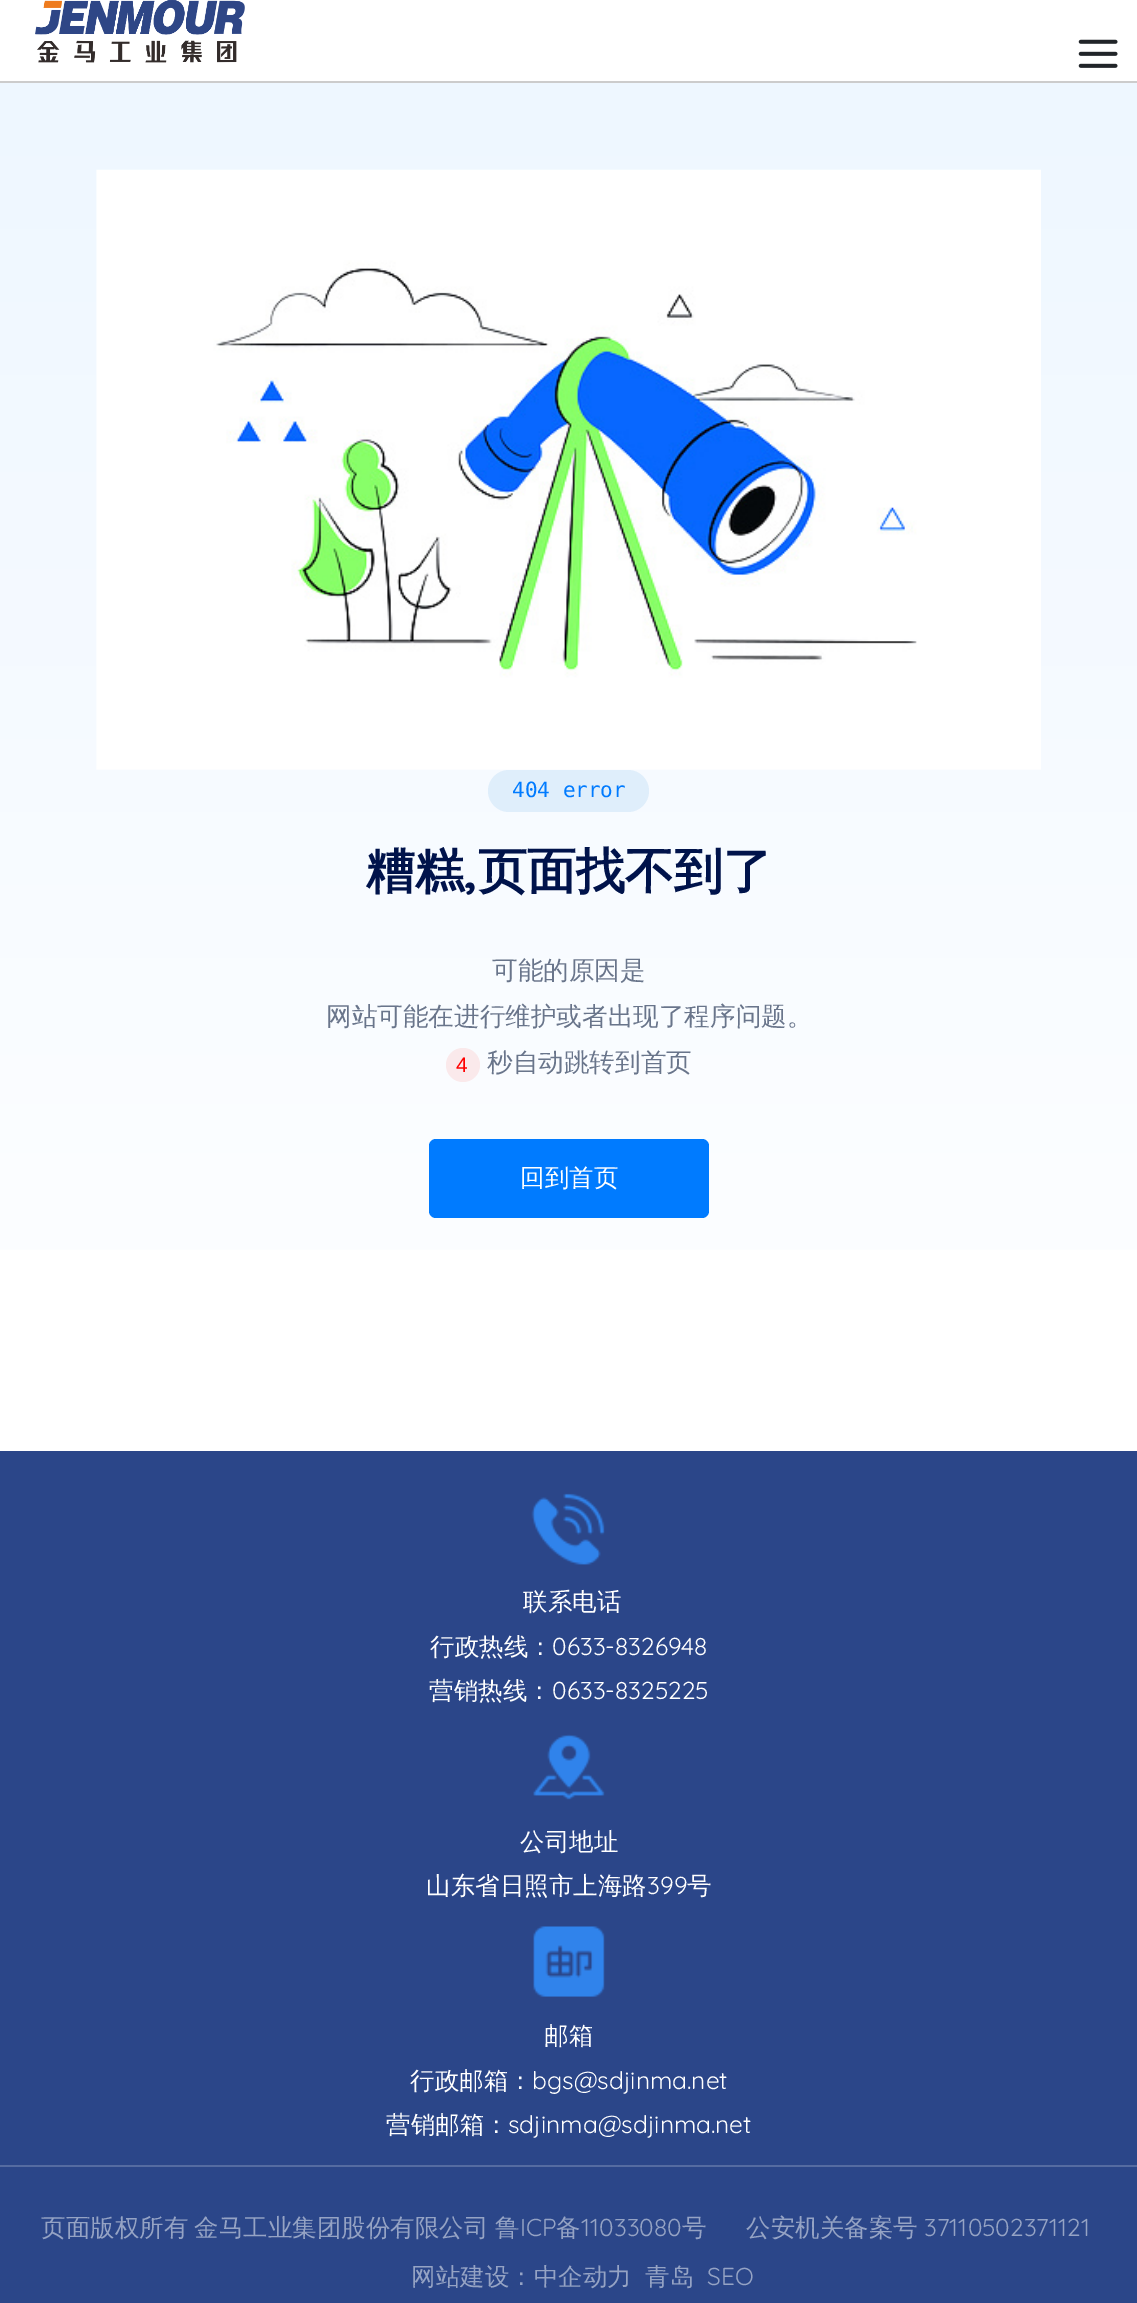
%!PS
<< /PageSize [1137 2303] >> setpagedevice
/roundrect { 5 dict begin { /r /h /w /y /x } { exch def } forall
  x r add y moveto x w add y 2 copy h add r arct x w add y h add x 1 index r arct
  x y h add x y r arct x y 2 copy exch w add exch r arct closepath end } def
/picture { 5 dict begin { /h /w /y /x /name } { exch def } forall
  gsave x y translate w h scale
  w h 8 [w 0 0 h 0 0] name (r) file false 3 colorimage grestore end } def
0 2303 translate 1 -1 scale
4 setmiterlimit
1 setgray
0 0 1137 2303 rectfill
0.8 setgray
0 81 1137 2 rectfill
(img1.rgb) 35 0 210 63 picture
(img2.rgb) 1078 39 40 29 picture
gsave newpath 0 83 moveto 1137 83 lineto 1137 1250 lineto 0 1250 lineto closepath clip newpath
<< /ShadingType 2 /ColorSpace /DeviceRGB /Coords [569 82 569 1451] /Extend [true true] /Function << /FunctionType 2 /Domain [0 1] /C0 [0.933 0.969 1] /C1 [1 1 1] /N 1 >> >> shfill grestore
(img3.rgb) 96 169 945 601 picture
0.875 0.933 0.984 setrgbcolor
488 770 161 42 21 roundrect fill
/DejaVuSansMono-Regular [21 0 0 -21 0 0] selectfont
0 0.482 1 setrgbcolor
512 797 moveto (404 error) show
/WenQuanYiZenHei-Bold [49 0 0 -49 0 0] selectfont
0 0.075 0.294 setrgbcolor
366 888 moveto (糟糕) show
/Quicksand-Bold [49 0 0 -49 0 0] selectfont
464 888 moveto (,) show
/WenQuanYiZenHei-Bold [49 0 0 -49 0 0] selectfont
478 888 moveto (页面找不到了) show
/WenQuanYiZenHei-Medium [25.6 0 0 -25.6 0 0] selectfont
0.412 0.459 0.545 setrgbcolor
492 979 moveto (可能的原因是) show
326 1025 moveto (网站可能在进行维护或者出现了程序问题。) show
0.98 0.914 0.922 setrgbcolor
newpath 463 1065 17 0 360 arc closepath fill
/LiberationSans-Regular [21 0 0 -21 0 0] selectfont
1 0 0 setrgbcolor
456 1072 moveto (4) show
/WenQuanYiZenHei-Medium [25.6 0 0 -25.6 0 0] selectfont
0.412 0.459 0.545 setrgbcolor
487 1071 moveto (秒自动跳转到首页) show
0 0.482 1 setrgbcolor
429 1139 280 79 7 roundrect fill
/WenQuanYiZenHei-Medium [24.5 0 0 -24.5 0 0] selectfont
1 setgray
520 1186 moveto (回到首页) show
0.169 0.275 0.537 setrgbcolor
0 1451 1137 852 rectfill
(img4.rgb) 531 1493 74 72 picture
1 setgray
523 1610 moveto (联系电话) show
430 1655 moveto (行政热线：) show
/Quicksand-Regular [24.5 0 0 -24.5 0 0] selectfont
552 1655 moveto (0633-8326948) show
/WenQuanYiZenHei-Medium [24.5 0 0 -24.5 0 0] selectfont
429 1699 moveto (营销热线：) show
/Quicksand-Regular [24.5 0 0 -24.5 0 0] selectfont
552 1699 moveto (0633-8325225) show
(img5.rgb) 533 1734 72 66 picture
/WenQuanYiZenHei-Medium [24.5 0 0 -24.5 0 0] selectfont
520 1850 moveto (公司地址) show
426 1894 moveto (山东省日照市上海路) show
/Quicksand-Regular [24.5 0 0 -24.5 0 0] selectfont
647 1894 moveto (399) show
/WenQuanYiZenHei-Medium [24.5 0 0 -24.5 0 0] selectfont
687 1894 moveto (号) show
(img6.rgb) 533 1926 72 71 picture
544 2044 moveto (邮箱) show
410 2089 moveto (行政邮箱：) show
/Quicksand-Regular [24.5 0 0 -24.5 0 0] selectfont
532 2089 moveto (bgs@sdjinma.net) show
/WenQuanYiZenHei-Medium [24.5 0 0 -24.5 0 0] selectfont
386 2133 moveto (营销邮箱：) show
/Quicksand-Regular [24.5 0 0 -24.5 0 0] selectfont
508 2133 moveto (sdjinma@sdjinma.net) show
0.333 0.42 0.631 setrgbcolor
0 2165 1137 2 rectfill
/WenQuanYiZenHei-Medium [24.5 0 0 -24.5 0 0] selectfont
0.584 0.639 0.769 setrgbcolor
41 2236 moveto -1 0 32 (页面版权所有 金马工业集团股份有限公司) widthshow
495 2236 moveto (鲁) show
/Quicksand-Regular [24.5 0 0 -24.5 0 0] selectfont
520 2236 moveto (ICP) show
/WenQuanYiZenHei-Medium [24.5 0 0 -24.5 0 0] selectfont
556 2236 moveto (备) show
/Quicksand-Regular [24.5 0 0 -24.5 0 0] selectfont
581 2236 moveto (11033080) show
/WenQuanYiZenHei-Medium [24.5 0 0 -24.5 0 0] selectfont
682 2236 moveto (号) show
746 2236 moveto (公安机关备案号) show
/Quicksand-Regular [24.5 0 0 -24.5 0 0] selectfont
924 2236 moveto (37110502371121) show
/WenQuanYiZenHei-Medium [24.5 0 0 -24.5 0 0] selectfont
411 2285 moveto (网站建设：中企动力) show
645 2285 moveto (青岛) show
/Quicksand-Regular [24.5 0 0 -24.5 0 0] selectfont
707 2285 moveto (SEO) show
showpage
